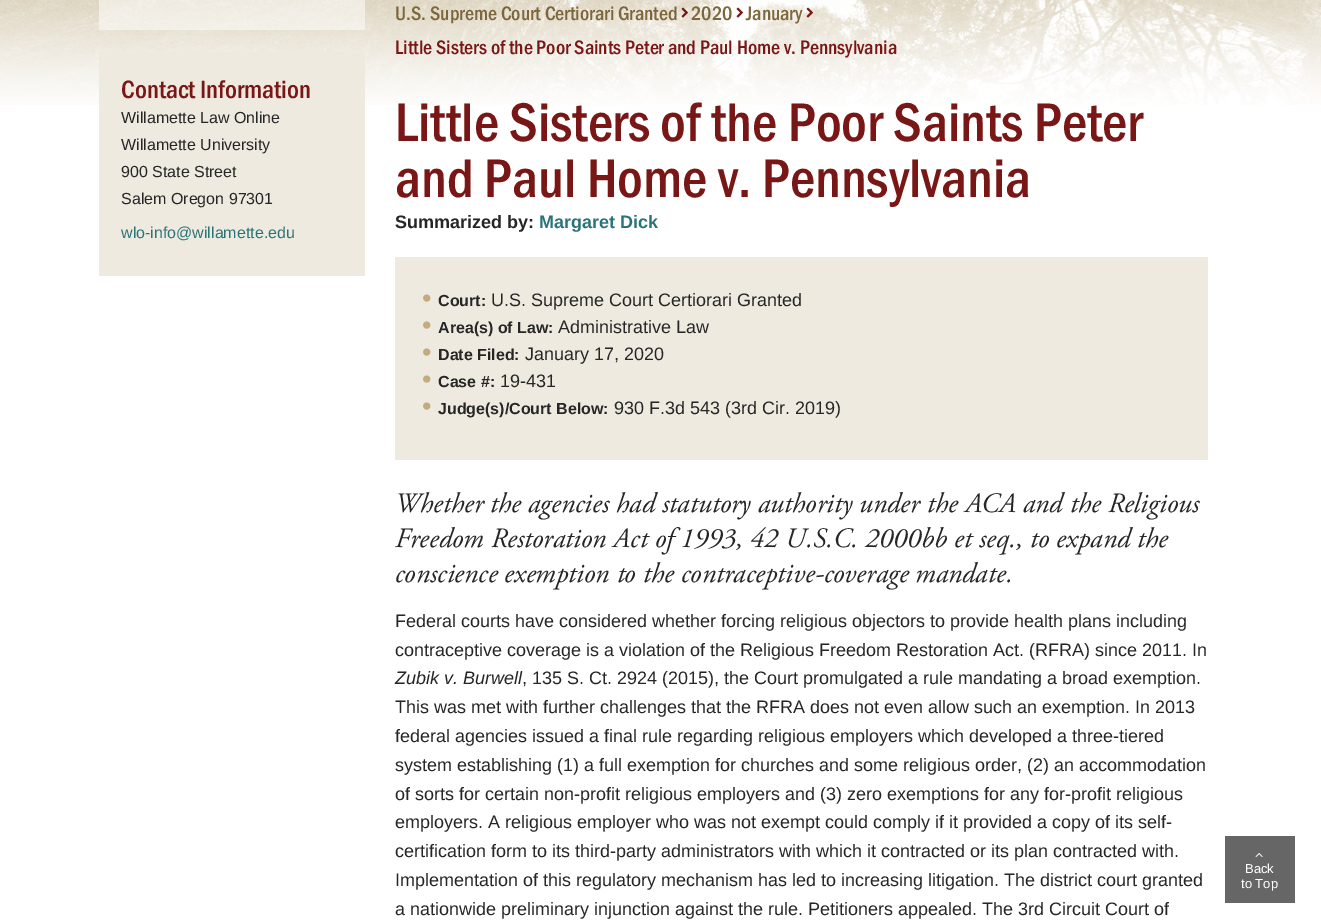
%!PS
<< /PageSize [1321 923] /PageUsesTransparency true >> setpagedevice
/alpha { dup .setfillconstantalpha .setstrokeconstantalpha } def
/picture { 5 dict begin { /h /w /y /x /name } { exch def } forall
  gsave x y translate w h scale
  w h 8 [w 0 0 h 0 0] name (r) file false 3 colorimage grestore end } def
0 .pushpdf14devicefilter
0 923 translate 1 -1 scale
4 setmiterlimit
1 setgray
0 0 1321 923 rectfill
(img1.rgb) 0 0 1321 105 picture
0.5 alpha
99 0 266 30 rectfill
1 alpha
0.937 0.918 0.875 setrgbcolor
99 52 266 224 rectfill
/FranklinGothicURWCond-Medium [26 0 0 -26 0 0] selectfont
0.475 0.09 0.086 setrgbcolor
121 98 moveto (Contact Information) show
/LiberationSans-Regular [16 0 0 -16 0 0] selectfont
0.149 setgray
121 123 moveto (Willamette Law Online) show
121 150 moveto (Willamette University) show
121 177 moveto (900 State Street) show
121 204 moveto (Salem Oregon 97301) show
0.165 0.455 0.475 setrgbcolor
121 238 moveto (wlo-info@willamette.edu) show
/FranklinGothicURWCond-Medium [20.25 0 0 -20.25 0 0] selectfont
0.486 0.404 0.235 setrgbcolor
395 20 moveto (U.S. Supreme Court Certiorari Granted) show
(img2.rgb) 681 7 7 11 picture
691 20 moveto (2020) show
(img3.rgb) 736 7 7 11 picture
746 20 moveto (January) show
(img4.rgb) 806 7 7 11 picture
0.475 0.09 0.086 setrgbcolor
395 54 moveto (Little Sisters of the Poor Saints Peter and Paul Home v. Pennsylvania) show
/FranklinGothicURWCond-Medium [56.25 0 0 -56.25 0 0] selectfont
395 141 moveto (Little Sisters of the Poor Saints Peter) show
395 197 moveto (and Paul Home v. Pennsylvania) show
/LiberationSans-Bold [18 0 0 -18 0 0] selectfont
0.149 setgray
395 228 moveto (Summarized by:) show
0.165 0.455 0.475 setrgbcolor
539 228 moveto (Margaret Dick) show
0.937 0.918 0.875 setrgbcolor
395 257 813 203 rectfill
/LiberationSans-Regular [27 0 0 -27 0 0] selectfont
0.753 0.675 0.494 setrgbcolor
422 307 moveto (•) show
/LiberationSans-Bold [16 0 0 -16 0 0] selectfont
0.149 setgray
438 306 moveto (Court:) show
/LiberationSans-Regular [18 0 0 -18 0 0] selectfont
491 306 moveto (U.S. Supreme Court Certiorari Granted) show
/LiberationSans-Regular [27 0 0 -27 0 0] selectfont
0.753 0.675 0.494 setrgbcolor
422 334 moveto (•) show
/LiberationSans-Bold [16 0 0 -16 0 0] selectfont
0.149 setgray
438 333 moveto (Area\(s\) of Law:) show
/LiberationSans-Regular [18 0 0 -18 0 0] selectfont
558 333 moveto (Administrative Law) show
/LiberationSans-Regular [27 0 0 -27 0 0] selectfont
0.753 0.675 0.494 setrgbcolor
422 361 moveto (•) show
/LiberationSans-Bold [16 0 0 -16 0 0] selectfont
0.149 setgray
438 360 moveto (Date Filed:) show
/LiberationSans-Regular [18 0 0 -18 0 0] selectfont
525 360 moveto (January 17, 2020) show
/LiberationSans-Regular [27 0 0 -27 0 0] selectfont
0.753 0.675 0.494 setrgbcolor
422 388 moveto (•) show
/LiberationSans-Bold [16 0 0 -16 0 0] selectfont
0.149 setgray
438 387 moveto (Case #:) show
/LiberationSans-Regular [18 0 0 -18 0 0] selectfont
500 387 moveto (19-431) show
/LiberationSans-Regular [27 0 0 -27 0 0] selectfont
0.753 0.675 0.494 setrgbcolor
422 415 moveto (•) show
/LiberationSans-Bold [16 0 0 -16 0 0] selectfont
0.149 setgray
438 414 moveto (Judge\(s\)/Court Below:) show
/LiberationSans-Regular [18 0 0 -18 0 0] selectfont
614 414 moveto (930 F.3d 543 \(3rd Cir. 2019\)) show
/AdobeGaramond-Italic [28 0 0 -28 0 0] selectfont
395 512 moveto (Whether the agencies had statutory authority under the ACA and the Religious) show
395 547 moveto (Freedom Restoration Act of 1993, 42 U.S.C. 2000bb et seq., to expand the) show
395 582 moveto (conscience exemption to the contraceptive-coverage mandate.) show
/LiberationSans-Regular [18 0 0 -18 0 0] selectfont
395 627 moveto (Federal courts have considered whether forcing religious objectors to provide health plans including) show
395 656 moveto (contraceptive coverage is a violation of the Religious Freedom Restoration Act. \(RFRA\) since 2011. In) show
/LiberationSans-Italic [18 0 0 -18 0 0] selectfont
395 684 moveto (Zubik v. Burwell) show
/LiberationSans-Regular [18 0 0 -18 0 0] selectfont
522 684 moveto (, 135 S. Ct. 2924 \(2015\), the Court promulgated a rule mandating a broad exemption.) show
395 713 moveto (This was met with further challenges that the RFRA does not even allow such an exemption. In 2013) show
395 742 moveto (federal agencies issued a final rule regarding religious employers which developed a three-tiered) show
395 771 moveto (system establishing \(1\) a full exemption for churches and some religious order, \(2\) an accommodation) show
395 800 moveto (of sorts for certain non-profit religious employers and \(3\) zero exemptions for any for-profit religious) show
395 828 moveto (employers. A religious employer who was not exempt could comply if it provided a copy of its self-) show
395 857 moveto (certification form to its third-party administrators with which it contracted or its plan contracted with.) show
395 886 moveto (Implementation of this regulatory mechanism has led to increasing litigation. The district court granted) show
395 915 moveto (a nationwide preliminary injunction against the rule. Petitioners appealed. The 3rd Circuit Court of) show
0.4 setgray
1225 836 70 67 rectfill
(img5.rgb) 1255 853 8 4 picture
/LiberationSans-Regular [13 0 0 -13 0 0] selectfont
1 setgray
1245 873 moveto (Back) show
1241 888 moveto (to Top) show
.poppdf14devicefilter showpage
